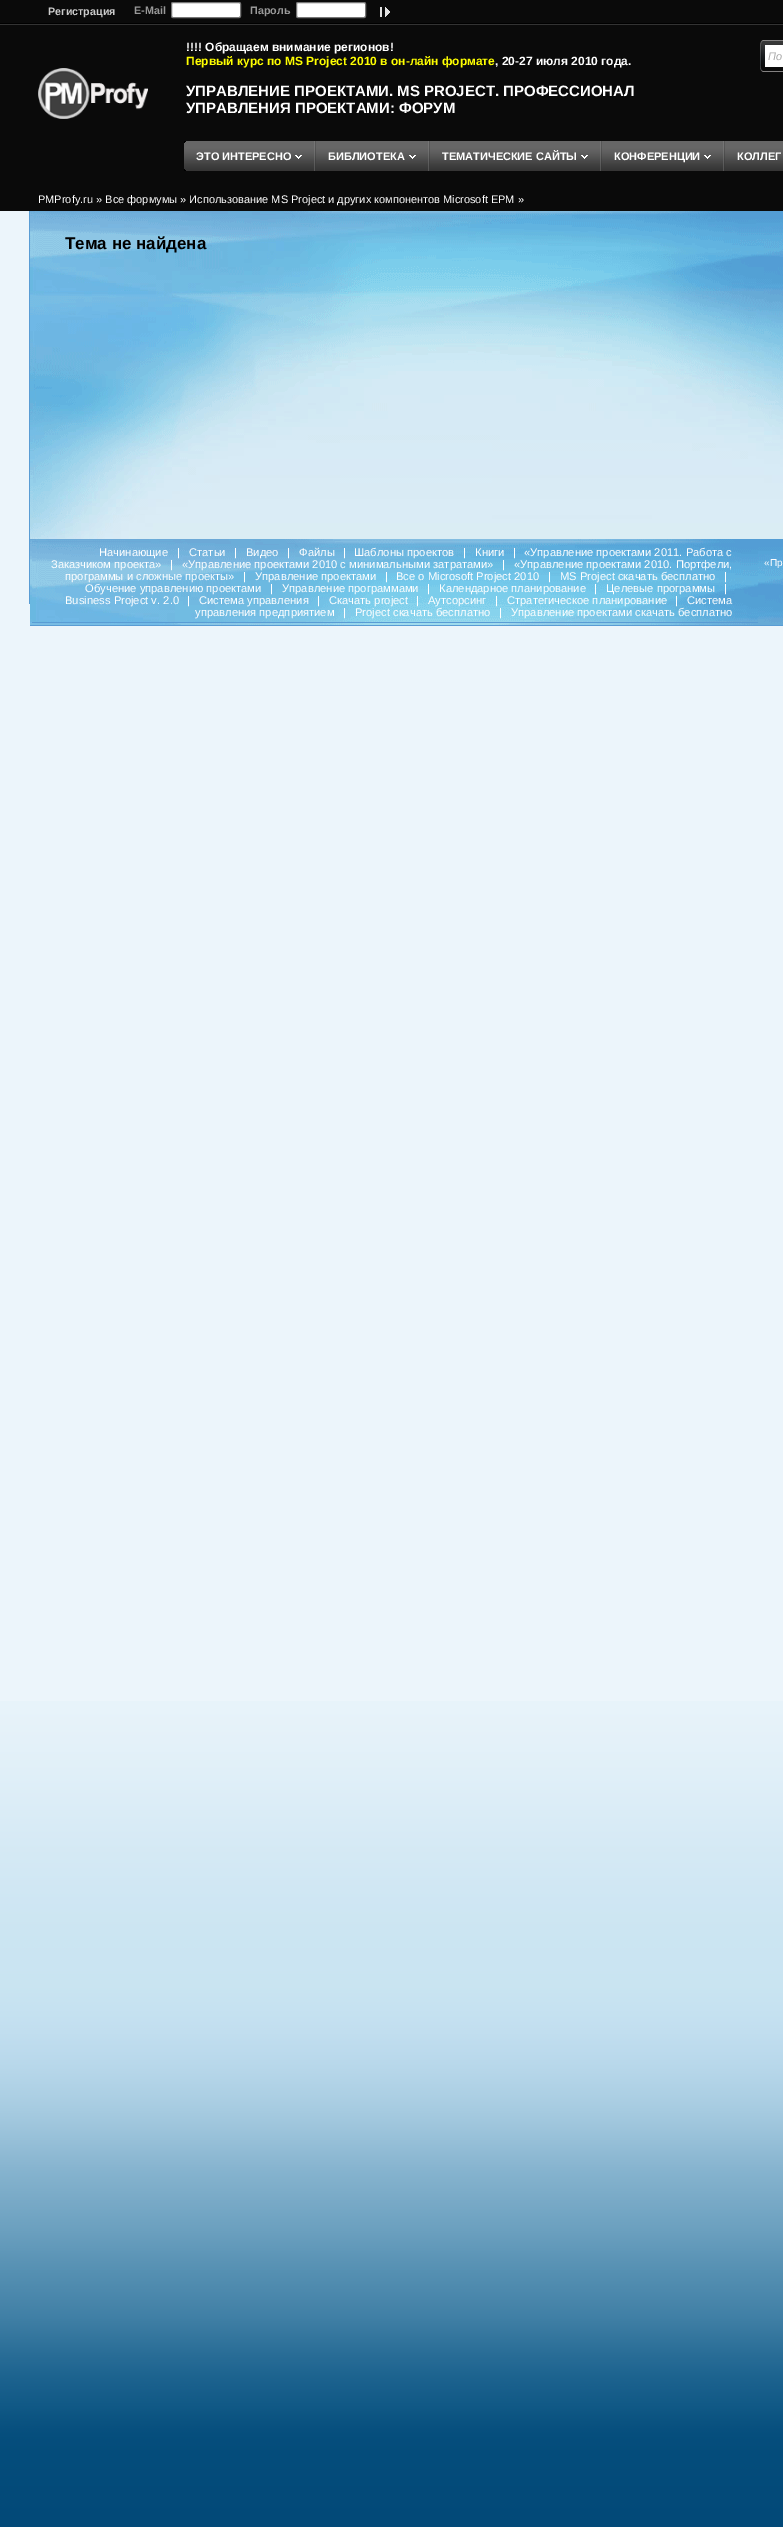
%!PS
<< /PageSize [783 2527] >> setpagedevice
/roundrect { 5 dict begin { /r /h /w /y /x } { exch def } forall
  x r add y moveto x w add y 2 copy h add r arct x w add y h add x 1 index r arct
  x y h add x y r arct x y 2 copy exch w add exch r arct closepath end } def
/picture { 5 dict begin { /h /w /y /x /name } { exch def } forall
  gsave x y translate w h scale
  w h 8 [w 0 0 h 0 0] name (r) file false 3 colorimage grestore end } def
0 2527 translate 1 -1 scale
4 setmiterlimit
0.925 0.961 0.984 setrgbcolor
0 0 783 2527 rectfill
(img1.rgb) 0 1701 783 826 picture
0.039 setgray
0 0 783 211 rectfill
(img2.rgb) 0 23 783 2 picture
/LiberationSans-Bold [10.75 0 0 -10.75 0 0] selectfont
0.8 setgray
48 15 moveto (Регистрация) show
0.6 setgray
134 14 moveto (E-Mail) show
1 setgray
171.5 2.5 69 15 1.5 roundrect gsave fill grestore
0.463 setgray
stroke
0.6 setgray
250 14 moveto (Пароль) show
1 setgray
296.5 2.5 69 15 1.5 roundrect gsave fill grestore
0.463 setgray
stroke
(img3.rgb) 380 7 10 10 picture
/LiberationSans-Bold [12 0 0 -12 0 0] selectfont
1 setgray
186 51 moveto (!!!! Обращаем внимание регионов!) show
1 1 0 setrgbcolor
186 65 moveto (Первый курс по MS Project 2010 в он-лайн формате) show
1 setgray
495 65 moveto (, 20-27 июля 2010 года.) show
/LiberationSans-Bold [15 0 0 -15 0 0] selectfont
186 96 moveto (УПРАВЛЕНИЕ ПРОЕКТАМИ. MS PROJECT. ПРОФЕССИОНАЛ) show
186 113 moveto (УПРАВЛЕНИЯ ПРОЕКТАМИ: ФОРУМ) show
(img4.rgb) 760 40 23 32 picture
765 45 18 22 rectfill
/LiberationSans-Italic [11 0 0 -11 0 0] selectfont
0.667 setgray
768 60 moveto (По) show
(img5.rgb) 38 68 110 51 picture
(img6.rgb) 186 141 128 30 picture
(img7.rgb) 184 141 2 30 picture
/LiberationSans-Bold [11 0 0 -11 0 0] selectfont
1 setgray
196 160 moveto (ЭТО ИНТЕРЕСНО) show
(img8.rgb) 295 155 7 4 picture
(img9.rgb) 314 141 2 30 picture
(img10.rgb) 316 141 112 30 picture
328 160 moveto (БИБЛИОТЕКА) show
(img8.rgb) 409 155 7 4 picture
(img9.rgb) 428 141 2 30 picture
(img11.rgb) 430 141 170 30 picture
442 160 moveto (ТЕМАТИЧЕСКИЕ САЙТЫ) show
(img8.rgb) 581 155 7 4 picture
(img9.rgb) 600 141 2 30 picture
(img12.rgb) 602 141 121 30 picture
614 160 moveto (КОНФЕРЕНЦИИ) show
(img8.rgb) 704 155 7 4 picture
(img9.rgb) 723 141 2 30 picture
(img13.rgb) 725 141 58 30 picture
737 160 moveto (КОЛЛЕГ) show
/LiberationSans-Regular [11 0 0 -11 0 0] selectfont
38 203 moveto (PMProfy.ru » Все формумы » Использование MS Project и других компонентов Microsoft EPM ») show
(img14.rgb) 30 211 753 328 picture
0.349 0.612 0.831 setrgbcolor
29 211 1 393 rectfill
/LiberationSans-Bold [17 0 0 -17 0 0] selectfont
0 setgray
65 249 moveto (Тема не найдена) show
(img15.rgb) 30 539 753 64 picture
(img16.rgb) 30 603 753 22 picture
0.349 0.612 0.831 setrgbcolor
30 625 753 1 rectfill
(img17.rgb) 32 541 726 81 picture
32 622 726 1 rectfill
/LiberationSans-Regular [11.2 0 0 -11.2 0 0] selectfont
1 setgray
99 556 moveto (Начинающие) show
177 556 moveto (|) show
189 556 moveto (Статьи) show
234 556 moveto (|) show
246 556 moveto (Видео) show
287 556 moveto (|) show
299 556 moveto (Файлы) show
343 556 moveto (|) show
354 556 moveto (Шаблоны проектов) show
463 556 moveto (|) show
475 556 moveto (Книги) show
513 556 moveto (|) show
524 556 moveto («Управление проектами 2011. Работа с) show
51 568 moveto (Заказчиком проекта») show
170 568 moveto (|) show
182 568 moveto («Управление проектами 2010 с минимальными затратами») show
502 568 moveto (|) show
514 568 moveto («Управление проектами 2010. Портфели,) show
65 580 moveto (программы и сложные проекты») show
243 580 moveto (|) show
255 580 moveto (Управление проектами) show
385 580 moveto (|) show
396 580 moveto (Все о Microsoft Project 2010) show
548 580 moveto (|) show
560 580 moveto (MS Project скачать бесплатно) show
724 580 moveto (|) show
85 592 moveto (Обучение управлению проектами) show
270 592 moveto (|) show
282 592 moveto (Управление программами) show
427 592 moveto (|) show
439 592 moveto (Календарное планирование) show
594 592 moveto (|) show
606 592 moveto (Целевые программы) show
724 592 moveto (|) show
65 604 moveto (Business Project v. 2.0) show
187 604 moveto (|) show
199 604 moveto (Система управления) show
317 604 moveto (|) show
329 604 moveto (Скачать project) show
416 604 moveto (|) show
428 604 moveto (Аутсорсинг) show
495 604 moveto (|) show
507 604 moveto (Стратегическое планирование) show
675 604 moveto (|) show
687 604 moveto (Система) show
195 616 moveto (управления предприятием) show
343 616 moveto (|) show
355 616 moveto (Project скачать бесплатно) show
499 616 moveto (|) show
511 616 moveto (Управление проектами скачать бесплатно) show
/LiberationSans-Regular [10 0 0 -10 0 0] selectfont
764 566 moveto («Пр) show
showpage
